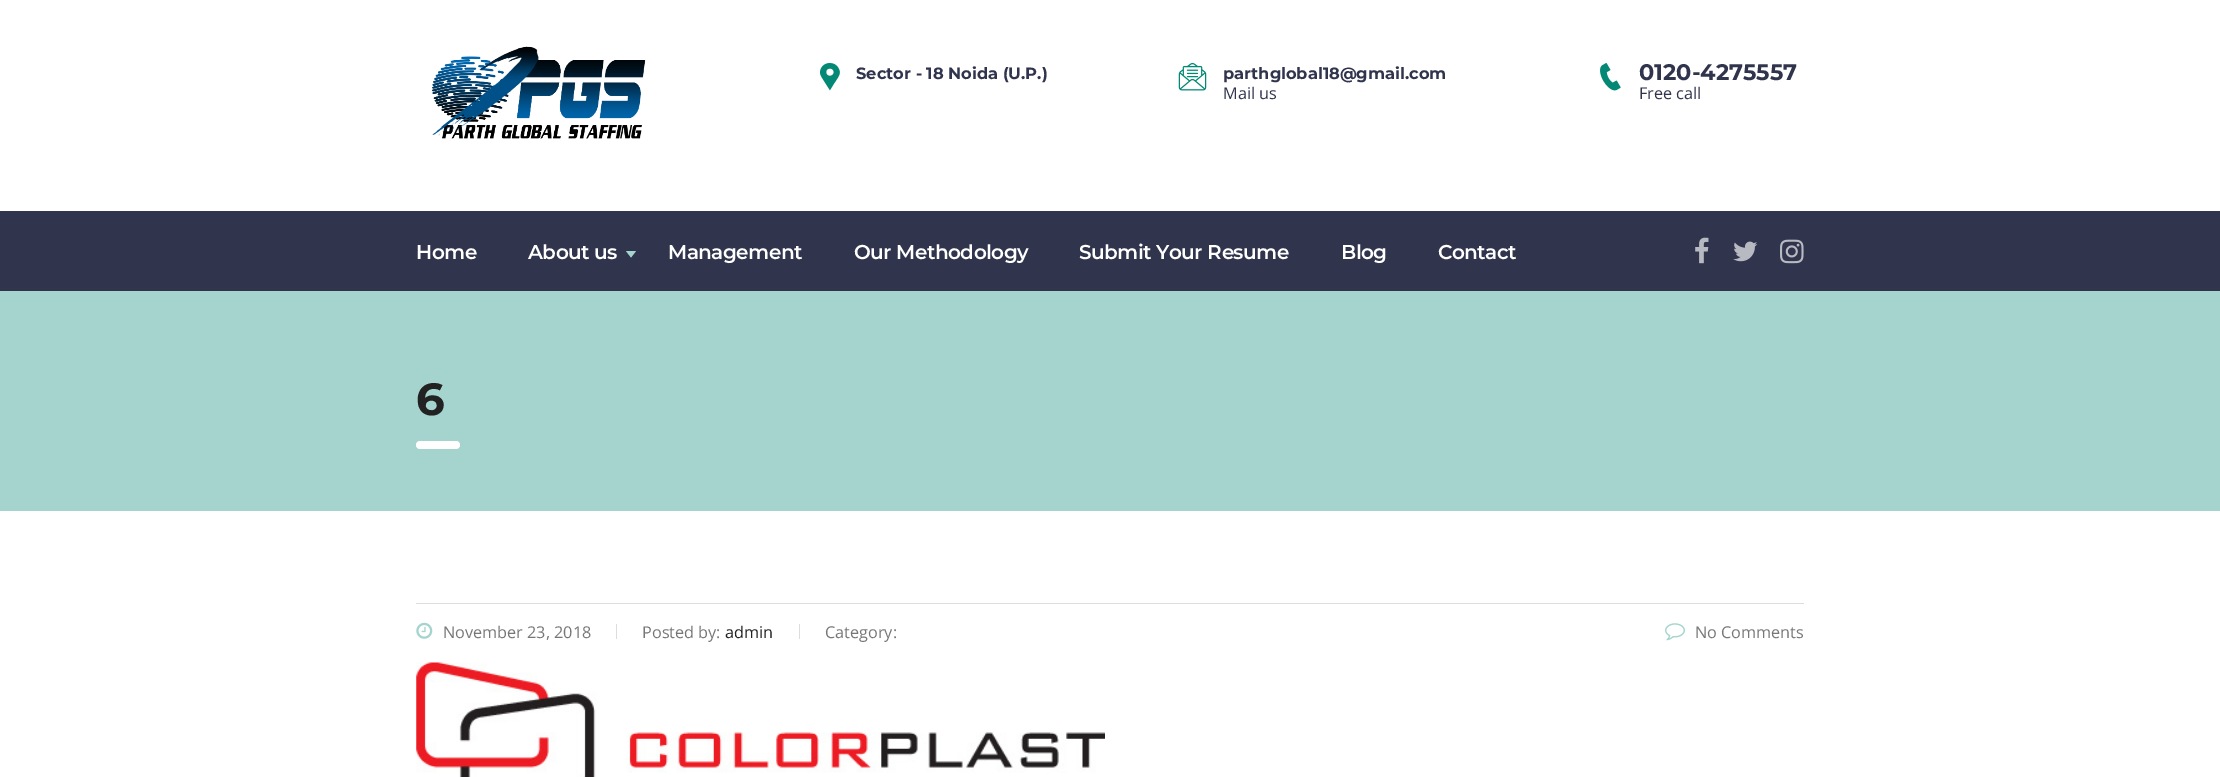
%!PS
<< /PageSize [2220 777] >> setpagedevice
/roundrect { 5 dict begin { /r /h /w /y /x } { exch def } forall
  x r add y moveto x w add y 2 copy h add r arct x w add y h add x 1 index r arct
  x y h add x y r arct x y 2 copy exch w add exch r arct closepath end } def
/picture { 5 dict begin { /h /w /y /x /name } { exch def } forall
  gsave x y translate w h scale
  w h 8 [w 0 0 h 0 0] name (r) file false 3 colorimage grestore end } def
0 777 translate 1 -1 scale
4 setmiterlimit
1 setgray
0 0 2220 777 rectfill
(img1.rgb) 431 46 215 93 picture
(img2.rgb) 820 63 20 28 picture
/Montserrat-Bold [16.25 0 0 -16.25 0 0] selectfont
0.188 0.204 0.302 setrgbcolor
856 79 moveto (Sector - 18 Noida \(U.P.\)) show
(img3.rgb) 1178 63 29 28 picture
1223 79 moveto (parthglobal18@gmail.com) show
/OpenSans-Regular [16.25 0 0 -16.25 0 0] selectfont
1223 99 moveto (Mail us) show
(img4.rgb) 1600 63 21 28 picture
/Montserrat-Bold [22.5 0 0 -22.5 0 0] selectfont
1639 80 moveto (0120-4275557) show
/OpenSans-Regular [16.25 0 0 -16.25 0 0] selectfont
1639 99 moveto (Free call) show
0 211 2220 80 rectfill
/Montserrat-SemiBold [20 0 0 -20 0 0] selectfont
1 setgray
416 259 moveto -0.5 0 (Home) ashow
528 259 moveto -0.5 0 (About us) ashow
0.647 0.831 0.808 setrgbcolor
newpath 626 251 moveto 636 251 lineto 631 257.5 lineto closepath fill
1 setgray
668 259 moveto -0.5 0 (Management) ashow
854 259 moveto -0.5 0 (Our Methodology) ashow
1079 259 moveto -0.5 0 (Submit Your Resume) ashow
1341 259 moveto -0.5 0 (Blog) ashow
1438 259 moveto -0.5 0 (Contact) ashow
(img5.rgb) 1695 237 14 27 picture
(img6.rgb) 1733 241 25 21 picture
(img7.rgb) 1780 239 24 25 picture
0.647 0.831 0.808 setrgbcolor
0 291 2220 220 rectfill
/Montserrat-Bold [45 0 0 -45 0 0] selectfont
0.133 setgray
416 415 moveto -3 0 (6) ashow
1 setgray
416 441 44 8 4 roundrect fill
0.867 setgray
416 603 1388 1 rectfill
(img8.rgb) 416 622 17 17 picture
/OpenSans-Regular [16.25 0 0 -16.25 0 0] selectfont
0.467 setgray
443 638 moveto (November 23, 2018) show
0.867 setgray
616 624 1 15 rectfill
0.467 setgray
642 638 moveto (Posted by:) show
0.133 setgray
725 638 moveto (admin) show
0.867 setgray
799 624 1 15 rectfill
0.467 setgray
825 638 moveto (Category:) show
(img9.rgb) 1665 623 20 18 picture
1695 638 moveto (No Comments) show
(img10.rgb) 416 662 689 115 picture
showpage
